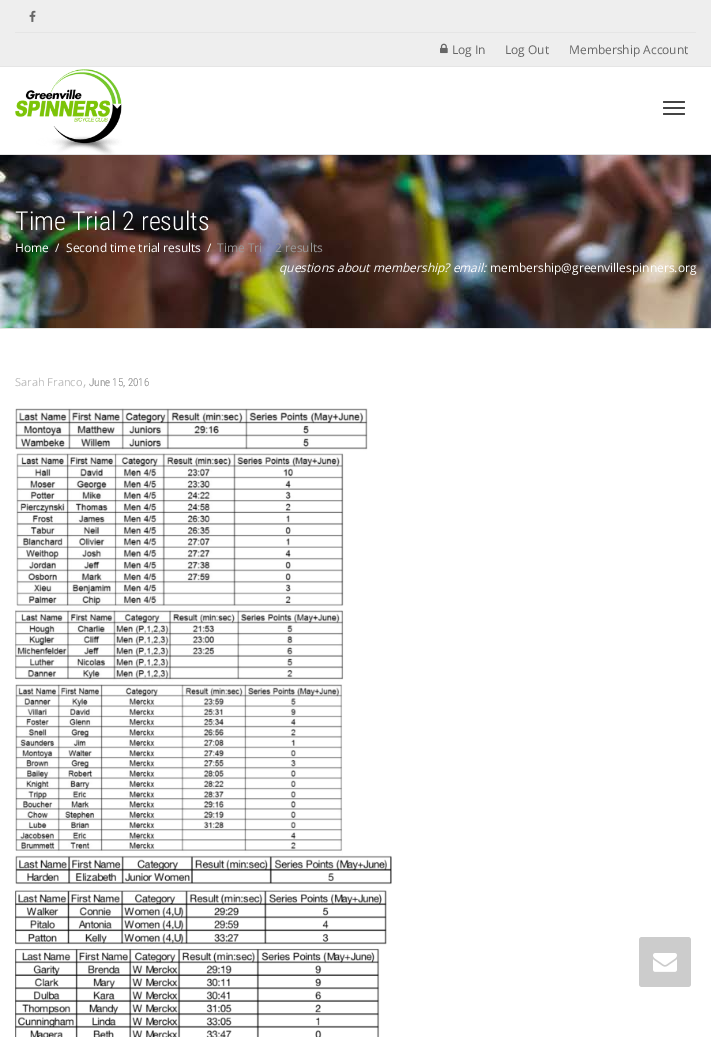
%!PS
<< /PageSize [711 1037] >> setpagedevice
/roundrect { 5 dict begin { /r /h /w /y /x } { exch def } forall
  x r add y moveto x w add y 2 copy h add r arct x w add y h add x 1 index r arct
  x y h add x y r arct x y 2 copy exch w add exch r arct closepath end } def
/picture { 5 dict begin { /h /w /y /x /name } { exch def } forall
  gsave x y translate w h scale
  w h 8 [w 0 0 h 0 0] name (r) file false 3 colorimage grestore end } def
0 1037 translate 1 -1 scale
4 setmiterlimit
1 setgray
0 0 711 1037 rectfill
0.933 setgray
0 0 711 66 rectfill
0.898 setgray
0 66 711 1 rectfill
15 32 681 1 rectfill
(img1.rgb) 29 10 7 12 picture
(img2.rgb) 440 43 8 11 picture
/OpenSans-Regular [12 0 0 -12 0 0] selectfont
0.4 setgray
452 54 moveto (Log In) show
505 54 moveto (Log Out) show
569 54 moveto (Membership Account) show
0.898 setgray
0 154 711 1 rectfill
(img3.rgb) 15 69 107 86 picture
0.267 setgray
663 101 22 2 1 roundrect fill
663 107 22 2 1 roundrect fill
663 113 22 2 1 roundrect fill
(img4.rgb) 0 155 711 173 picture
0.898 setgray
0 328 711 1 rectfill
/RobotoCondensed-Light [26 0 0 -26 0 0] selectfont
1 setgray
15 230 moveto (Time Trial 2 results) show
/OpenSans-Regular [12 0 0 -12 0 0] selectfont
15 252 moveto (Home) show
55 252 moveto (/) show
66 252 moveto (Second time trial results) show
207 252 moveto (/) show
0.6 setgray
217 252 moveto (Time Tri) show
275 252 moveto (2 results) show
/OpenSans-Italic [12 0 0 -12 0 0] selectfont
1 setgray
279 272 moveto (questions about membership? email:) show
/OpenSans-Regular [12 0 0 -12 0 0] selectfont
490 272 moveto (membership@greenvillespinners.org) show
/OpenSans-Regular [11 0 0 -11 0 0] selectfont
0.733 setgray
15 386 moveto (Sarah Franco) show
/OpenSans-Regular [13 0 0 -13 0 0] selectfont
83 386 moveto (,) show
/RobotoCondensed-Light [11 0 0 -11 0 0] selectfont
0.467 setgray
89 386 moveto (June 15, 2016) show
(img5.rgb) 15 408 377 629 picture
0.8 setgray
639 937 52 50 3 roundrect fill
(img6.rgb) 653 953 24 19 picture
showpage
